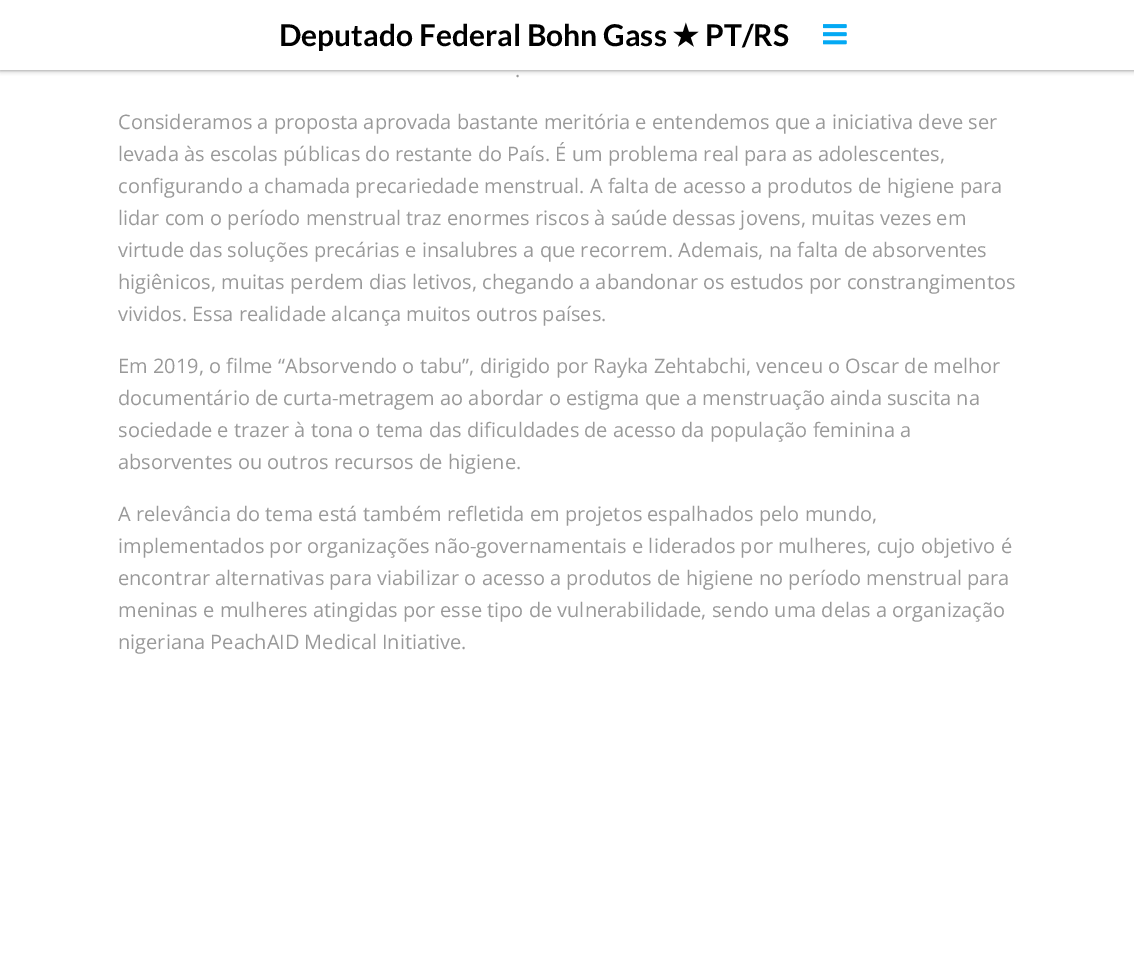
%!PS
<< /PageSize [1134 971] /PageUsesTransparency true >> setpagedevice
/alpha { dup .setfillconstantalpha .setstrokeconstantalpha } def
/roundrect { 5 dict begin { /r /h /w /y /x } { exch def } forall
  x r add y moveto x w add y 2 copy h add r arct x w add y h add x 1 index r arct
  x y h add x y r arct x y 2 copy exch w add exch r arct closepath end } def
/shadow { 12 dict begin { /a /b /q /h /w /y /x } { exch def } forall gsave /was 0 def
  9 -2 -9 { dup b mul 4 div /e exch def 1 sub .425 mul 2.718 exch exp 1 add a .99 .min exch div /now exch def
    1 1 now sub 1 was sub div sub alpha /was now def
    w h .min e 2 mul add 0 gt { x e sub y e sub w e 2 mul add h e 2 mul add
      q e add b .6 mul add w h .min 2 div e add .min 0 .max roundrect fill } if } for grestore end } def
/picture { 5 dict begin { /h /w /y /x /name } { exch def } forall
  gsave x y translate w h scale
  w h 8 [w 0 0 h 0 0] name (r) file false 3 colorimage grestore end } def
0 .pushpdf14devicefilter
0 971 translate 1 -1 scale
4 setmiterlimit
1 setgray
0 0 1134 971 rectfill
0 setgray
0 0 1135 70 0 2.5 0.5 shadow
1 setgray
0 0 1134 70 rectfill
/Lato-Bold [30 0 0 -30 0 0] selectfont
0 setgray
279 46 moveto (Deputado Federal Bohn Gass) show
/DejaVuSans-Bold [30 0 0 -30 0 0] selectfont
672 46 moveto (★) show
/Lato-Bold [30 0 0 -30 0 0] selectfont
705 46 moveto (PT/RS) show
(img1.rgb) 823 24 24 21 picture
/OpenSans-Regular [20 0 0 -20 0 0] selectfont
0.6 setgray
515 77 moveto (.) show
118 129 moveto (Consideramos a proposta aprovada bastante meritória e entendemos que a iniciativa deve ser) show
118 161 moveto (levada às escolas públicas do restante do País. É um problema real para as adolescentes,) show
118 193 moveto (configurando a chamada precariedade menstrual. A falta de acesso a produtos de higiene para) show
118 225 moveto (lidar com o período menstrual traz enormes riscos à saúde dessas jovens, muitas vezes em) show
118 257 moveto (virtude das soluções precárias e insalubres a que recorrem. Ademais, na falta de absorventes) show
118 289 moveto (higiênicos, muitas perdem dias letivos, chegando a abandonar os estudos por constrangimentos) show
118 321 moveto (vividos. Essa realidade alcança muitos outros países.) show
118 373 moveto (Em 2019, o filme “Absorvendo o tabu”, dirigido por Rayka Zehtabchi, venceu o Oscar de melhor) show
118 405 moveto (documentário de curta-metragem ao abordar o estigma que a menstruação ainda suscita na) show
118 437 moveto (sociedade e trazer à tona o tema das dificuldades de acesso da população feminina a) show
118 469 moveto (absorventes ou outros recursos de higiene.) show
118 521 moveto (A relevância do tema está também refletida em projetos espalhados pelo mundo,) show
118 553 moveto (implementados por organizações não-governamentais e liderados por mulheres, cujo objetivo é) show
118 585 moveto (encontrar alternativas para viabilizar o acesso a produtos de higiene no período menstrual para) show
118 617 moveto (meninas e mulheres atingidas por esse tipo de vulnerabilidade, sendo uma delas a organização) show
118 649 moveto (nigeriana PeachAID Medical Initiative.) show
.poppdf14devicefilter showpage
